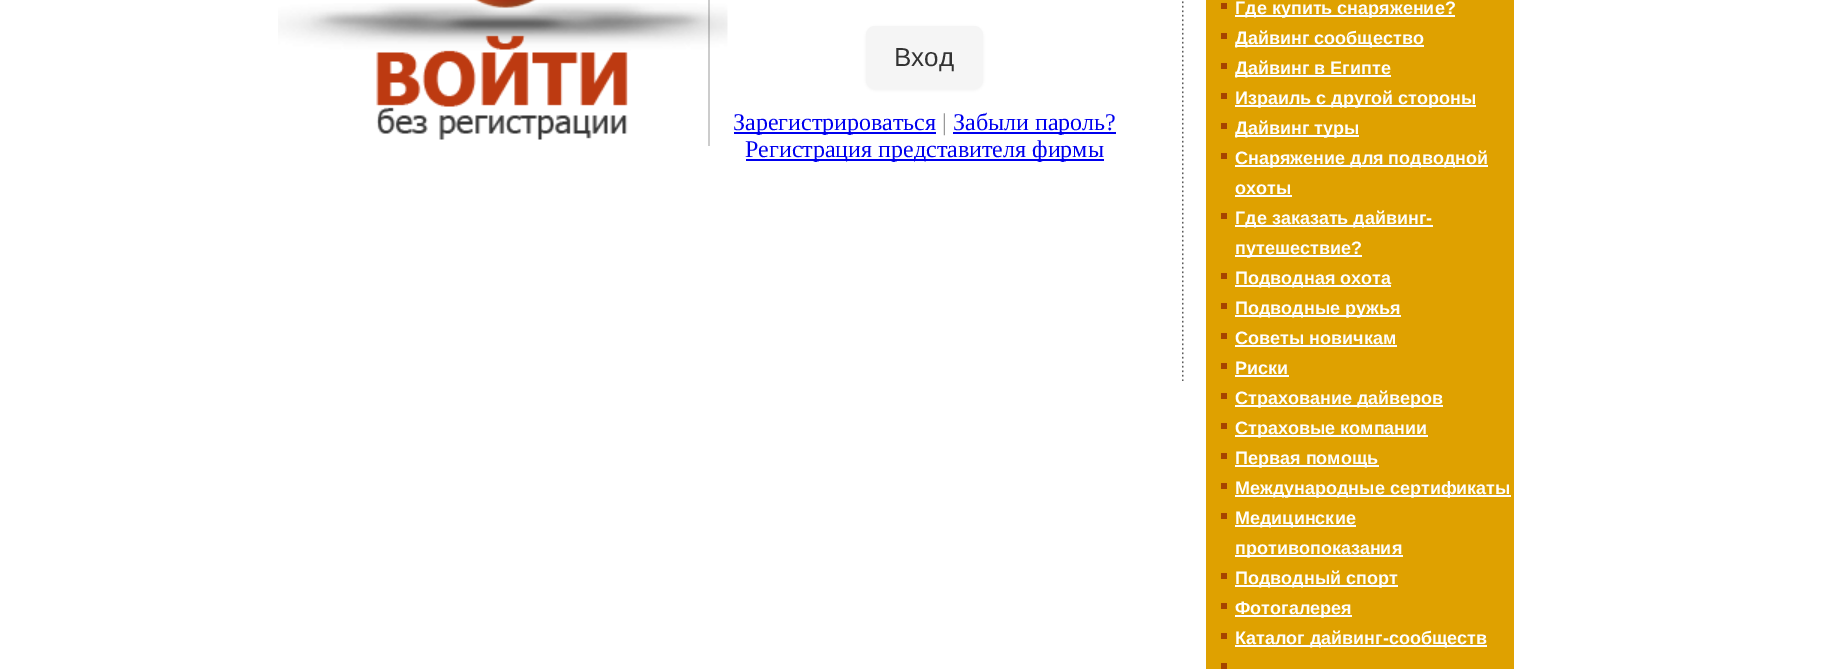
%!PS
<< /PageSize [1844 669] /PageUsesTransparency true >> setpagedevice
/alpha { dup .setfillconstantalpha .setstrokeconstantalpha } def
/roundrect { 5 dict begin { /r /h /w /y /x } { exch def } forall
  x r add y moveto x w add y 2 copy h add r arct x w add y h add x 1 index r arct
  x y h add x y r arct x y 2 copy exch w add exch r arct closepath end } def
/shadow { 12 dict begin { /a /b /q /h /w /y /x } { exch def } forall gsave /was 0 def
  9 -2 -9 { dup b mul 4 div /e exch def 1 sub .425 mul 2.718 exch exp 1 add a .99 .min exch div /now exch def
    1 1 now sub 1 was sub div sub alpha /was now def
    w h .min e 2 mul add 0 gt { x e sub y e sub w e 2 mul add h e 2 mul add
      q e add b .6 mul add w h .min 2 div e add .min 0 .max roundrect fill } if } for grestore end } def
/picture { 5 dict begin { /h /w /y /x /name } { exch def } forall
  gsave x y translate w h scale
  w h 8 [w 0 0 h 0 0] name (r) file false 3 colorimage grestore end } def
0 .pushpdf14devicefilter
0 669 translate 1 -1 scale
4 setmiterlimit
1 setgray
0 0 1844 669 rectfill
(img1.rgb) 1182 1 2 380 picture
0.8 setgray
708 0 2 146 rectfill
(img2.rgb) 278 0 450 140 picture
0 setgray
866 27 117 63 9 1.5 0.05 shadow
0.961 setgray
866 26 117 63 9 roundrect fill
/LiberationSans-Regular [26 0 0 -26 0 0] selectfont
0.2 setgray
894 66 moveto (Вход) show
0 0 0.933 setrgbcolor
734 132 202 2 rectfill
/LiberationSerif-Regular [24 0 0 -24 0 0] selectfont
733 130 moveto (Зарегистрироваться) show
0.6 setgray
942 130 moveto (|) show
0 0 0.933 setrgbcolor
953 132 163 2 rectfill
953 130 moveto (Забыли пароль?) show
746 159 358 2 rectfill
745 157 moveto (Регистрация представителя фирмы) show
0.875 0.631 0 setrgbcolor
1206 0 308 669 rectfill
0.647 0.267 0 setrgbcolor
1221 3 6 6 rectfill
1 setgray
1235 15 220 2 rectfill
/LiberationSans-Bold [18 0 0 -18 0 0] selectfont
1235 14 moveto (Где купить снаряжение?) show
0.647 0.267 0 setrgbcolor
1221 33 6 6 rectfill
1 setgray
1235 45 189 2 rectfill
1235 44 moveto (Дайвинг сообщество) show
0.647 0.267 0 setrgbcolor
1221 63 6 6 rectfill
1 setgray
1235 75 156 2 rectfill
1235 74 moveto (Дайвинг в Египте) show
0.647 0.267 0 setrgbcolor
1221 93 6 6 rectfill
1 setgray
1235 105 241 2 rectfill
1235 104 moveto (Израиль с другой стороны) show
0.647 0.267 0 setrgbcolor
1221 123 6 6 rectfill
1 setgray
1235 135 124 2 rectfill
1235 134 moveto (Дайвинг туры) show
0.647 0.267 0 setrgbcolor
1221 153 6 6 rectfill
1 setgray
1235 165 253 2 rectfill
1235 164 moveto (Снаряжение для подводной) show
1235 194 moveto (охоты) show
1235 195 57 2 rectfill
0.647 0.267 0 setrgbcolor
1221 213 6 6 rectfill
1 setgray
1235 225 198 2 rectfill
1235 224 moveto (Где заказать дайвинг-) show
1235 255 127 2 rectfill
1235 254 moveto (путешествие?) show
0.647 0.267 0 setrgbcolor
1221 273 6 6 rectfill
1 setgray
1235 285 156 2 rectfill
1235 284 moveto (Подводная охота) show
0.647 0.267 0 setrgbcolor
1221 303 6 6 rectfill
1 setgray
1235 315 166 2 rectfill
1235 314 moveto (Подводные ружья) show
0.647 0.267 0 setrgbcolor
1221 333 6 6 rectfill
1 setgray
1235 344 moveto (Советы новичкам) show
1235 345 162 2 rectfill
0.647 0.267 0 setrgbcolor
1221 363 6 6 rectfill
1 setgray
1235 374 moveto (Риски) show
1235 375 54 2 rectfill
0.647 0.267 0 setrgbcolor
1221 393 6 6 rectfill
1 setgray
1235 405 208 2 rectfill
1235 404 moveto (Cтрахование дайверов) show
0.647 0.267 0 setrgbcolor
1221 423 6 6 rectfill
1 setgray
1235 435 193 2 rectfill
1235 434 moveto (Страховые компании) show
0.647 0.267 0 setrgbcolor
1221 453 6 6 rectfill
1 setgray
1235 465 144 2 rectfill
1235 464 moveto (Первая помощь) show
0.647 0.267 0 setrgbcolor
1221 483 6 6 rectfill
1 setgray
1235 495 276 2 rectfill
1235 494 moveto (Международные сертификаты) show
0.647 0.267 0 setrgbcolor
1221 513 6 6 rectfill
1 setgray
1235 525 121 2 rectfill
1235 524 moveto (Медицинские) show
1235 555 168 2 rectfill
1235 554 moveto (противопоказания) show
0.647 0.267 0 setrgbcolor
1221 573 6 6 rectfill
1 setgray
1235 585 163 2 rectfill
1235 584 moveto (Подводный спорт) show
0.647 0.267 0 setrgbcolor
1221 603 6 6 rectfill
1 setgray
1235 615 117 2 rectfill
1235 614 moveto (Фотогалерея) show
0.647 0.267 0 setrgbcolor
1221 633 6 6 rectfill
1 setgray
1235 645 252 2 rectfill
1235 644 moveto (Каталог дайвинг-сообществ) show
0.647 0.267 0 setrgbcolor
1221 663 6 6 rectfill
.poppdf14devicefilter showpage
